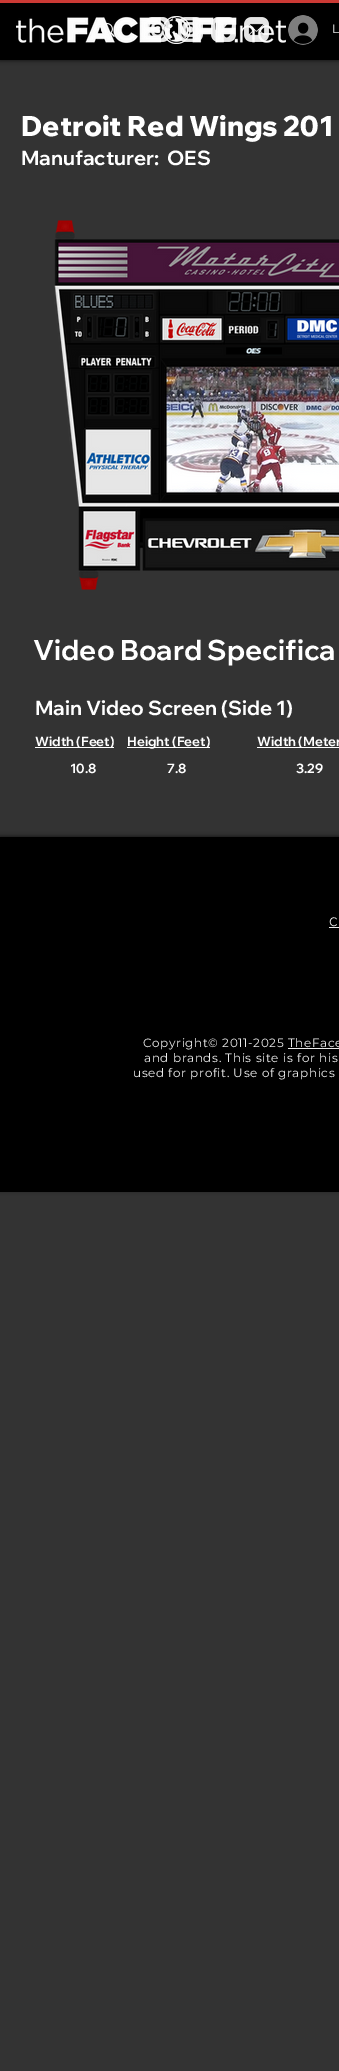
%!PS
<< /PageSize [339 2071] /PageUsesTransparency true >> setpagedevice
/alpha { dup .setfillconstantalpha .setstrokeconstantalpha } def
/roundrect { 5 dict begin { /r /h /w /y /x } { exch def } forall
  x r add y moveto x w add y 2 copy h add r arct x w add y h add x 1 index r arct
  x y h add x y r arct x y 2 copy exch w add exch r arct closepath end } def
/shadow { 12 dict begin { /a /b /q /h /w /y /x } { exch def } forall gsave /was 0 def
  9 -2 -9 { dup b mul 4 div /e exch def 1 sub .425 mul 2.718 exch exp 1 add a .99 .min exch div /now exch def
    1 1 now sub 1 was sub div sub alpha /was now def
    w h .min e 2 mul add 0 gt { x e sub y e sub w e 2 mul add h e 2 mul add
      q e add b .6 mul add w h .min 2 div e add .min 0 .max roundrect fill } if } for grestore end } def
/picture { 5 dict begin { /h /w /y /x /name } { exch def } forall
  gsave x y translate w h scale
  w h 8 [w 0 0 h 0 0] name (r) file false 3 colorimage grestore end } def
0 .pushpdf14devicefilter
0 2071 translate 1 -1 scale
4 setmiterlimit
0.2 setgray
0 0 339 2071 rectfill
0 setgray
0 1 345 60 0 2 0.6 shadow
0.8 0.227 0.208 setrgbcolor
0 0 339 3 rectfill
0 setgray
0 3 339 57 rectfill
(img2.rgb) 101 23 14 14 picture
(img3.rgb) 145 17 25 25 picture
(img4.rgb) 178 17 25 25 picture
(img5.rgb) 211 17 25 25 picture
(img6.rgb) 244 17 25 25 picture
(img1.rgb) 16 16 270 28 picture
(img7.rgb) 288 15 30 30 picture
/Montserrat-Regular [12 0 0 -12 0 0] selectfont
0.922 setgray
332 33 moveto (L) show
/WixMadeforDisplay-ExtraBold [28 0 0 -28 0 0] selectfont
1 setgray
21 136 moveto (Detroit Red Wings 201) show
/WixMadeforDisplay-Bold [20 0 0 -20 0 0] selectfont
21 165 moveto (Manufacturer:) show
167 165 moveto (OES) show
(img8.rgb) 54 220 285 370 picture
/WixMadeforDisplay-Bold [28 0 0 -28 0 0] selectfont
33 660 moveto (Video Board Specifica) show
/WixMadeforDisplay-Bold [20 0 0 -20 0 0] selectfont
35 715 moveto (Main Video Screen \(Side 1\)) show
35 747 79 1 rectfill
/WixMadeforDisplay-Bold [13 0 0 -13 0 0] selectfont
35 746 moveto (Width \(Feet\)) show
127 747 83 1 rectfill
127 746 moveto (Height \(Feet\)) show
257 747 82 1 rectfill
257 746 moveto (Width \(Meter) show
70 773 moveto (10.8) show
167 773 moveto (7.8) show
296 773 moveto (3.29) show
0 setgray
0 836 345 355 0 2 0.6 shadow
0 837 339 355 rectfill
/WixMadeforText-Regular [12 0 0 -12 0 0] selectfont
0.922 setgray
329 926 moveto (C) show
329 927 10 1 rectfill
/Montserrat-Regular [12 0 0 -12 0 0] selectfont
143 1047 moveto 0.6 0 (Copyright© 2011-2025 TheFace) ashow
288 1048 51 1 rectfill
144 1062 moveto 0.6 0 (and brands. This site is for his) ashow
133 1077 moveto 0.6 0 (used for profit. Use of graphics) ashow
.poppdf14devicefilter showpage
